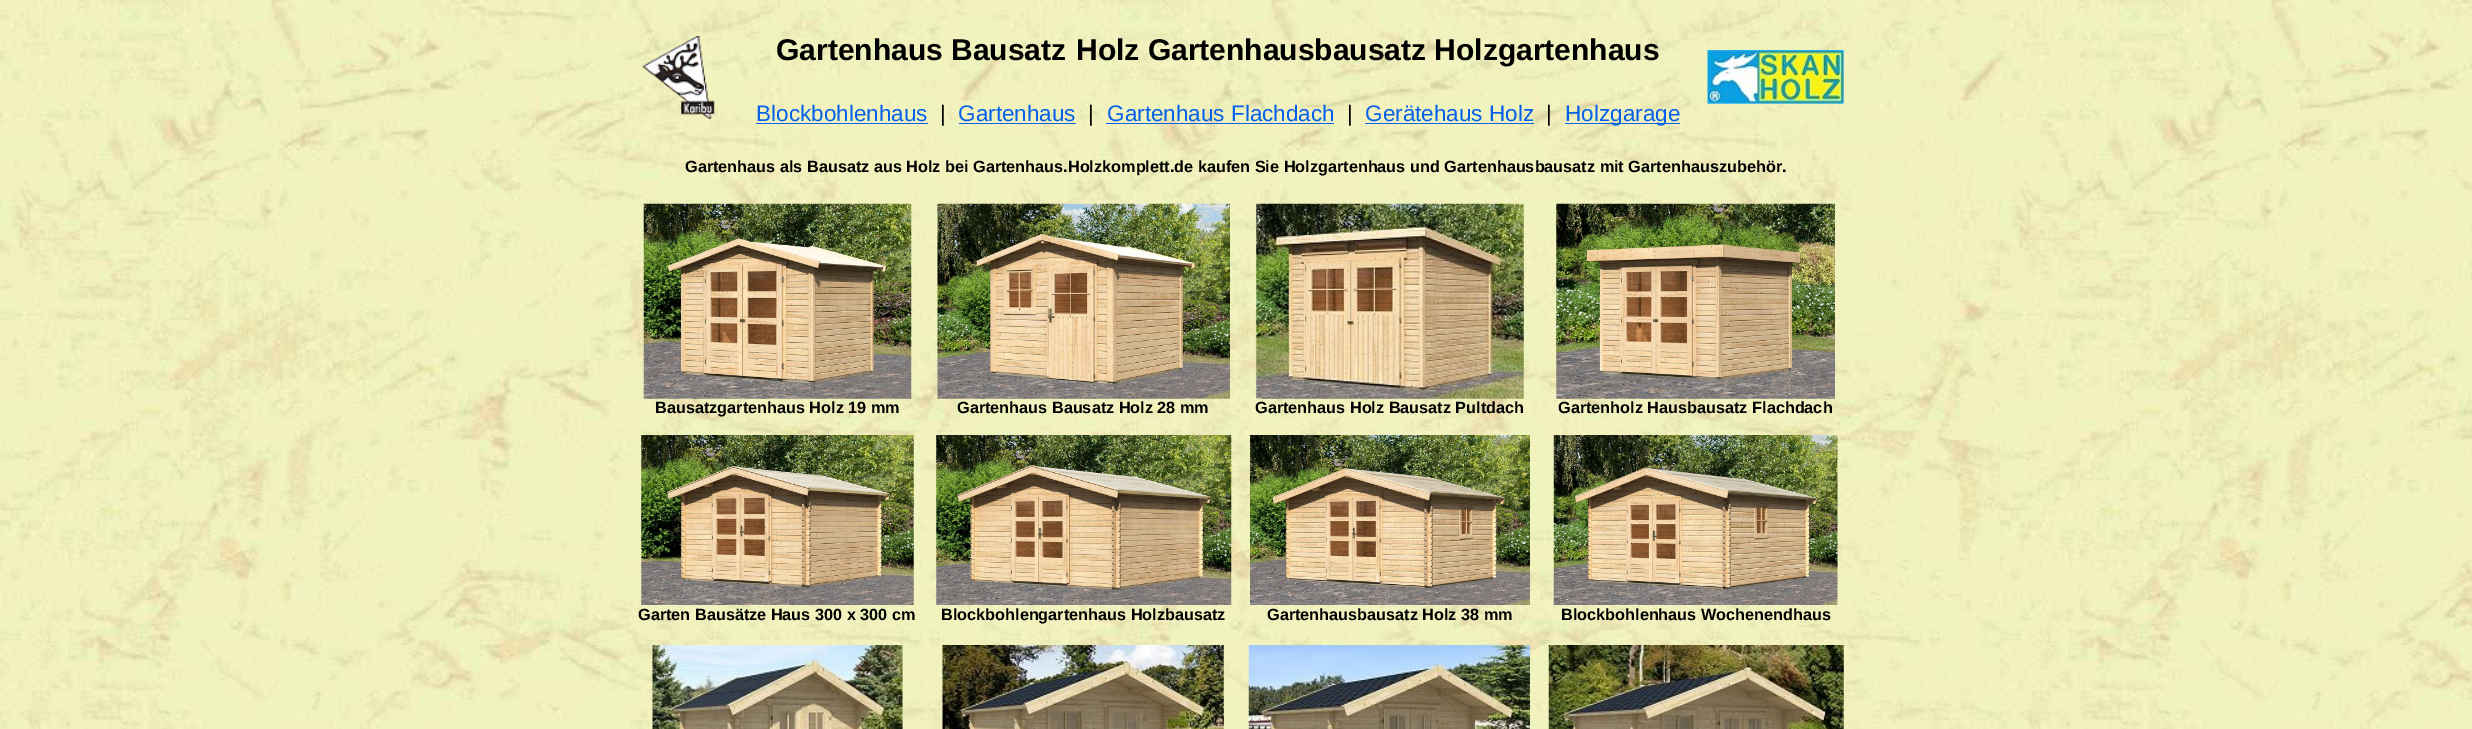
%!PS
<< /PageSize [2472 729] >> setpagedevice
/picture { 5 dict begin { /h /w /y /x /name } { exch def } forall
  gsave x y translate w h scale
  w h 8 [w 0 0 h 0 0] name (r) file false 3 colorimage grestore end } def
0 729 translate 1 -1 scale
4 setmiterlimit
1 setgray
0 0 2472 729 rectfill
(img1.rgb) 0 0 2472 729 picture
(img2.rgb) 642 36 74 83 picture
/LiberationSans-Bold [30 0 0 -30 0 0] selectfont
0 setgray
776 60 moveto (Gartenhaus Bausatz) show
1076 60 moveto (Holz Gartenhausbausatz Holzgartenhaus) show
(img3.rgb) 1707 50 137 54 picture
/LiberationSans-Regular [22.5 0 0 -22.5 0 0] selectfont
0.024 0.38 0.918 setrgbcolor
756 121 moveto (Blockbohlenhaus) show
756 123 172 1 rectfill
0 setgray
940 121 moveto (|) show
0.024 0.38 0.918 setrgbcolor
958 121 moveto (Gartenhaus) show
959 123 117 1 rectfill
0 setgray
1088 121 moveto (|) show
0.024 0.38 0.918 setrgbcolor
1107 121 moveto (Gartenhaus Flachdach) show
1106 123 228 1 rectfill
0 setgray
1347 121 moveto (|) show
0.024 0.38 0.918 setrgbcolor
1365 121 moveto (Gerätehaus Holz) show
1365 123 169 1 rectfill
0 setgray
1546 121 moveto (|) show
0.024 0.38 0.918 setrgbcolor
1565 123 115 1 rectfill
1565 121 moveto (Holzgarage) show
/LiberationSans-Bold [16.25 0 0 -16.25 0 0] selectfont
0 setgray
685 172 moveto (Gartenhaus als Bausatz aus Holz bei Gartenhaus.Holzkomplett.de kaufen Sie Holzgartenhaus und Gartenhausbausatz mit Gartenhauszubehör.) show
(img4.rgb) 643 203 269 196 picture
655 413 moveto (Bausatzgartenhaus Holz 19 mm) show
(img5.rgb) 937 203 293 196 picture
957 413 moveto (Gartenhaus Bausatz Holz 28 mm) show
(img6.rgb) 1256 203 268 196 picture
1255 413 moveto (Gartenhaus Holz Bausatz Pultdach) show
(img7.rgb) 1556 203 279 196 picture
1558 413 moveto (Gartenholz Hausbausatz Flachdach) show
(img8.rgb) 641 435 273 170 picture
638 620 moveto (Garten Bausätze Haus 300 x 300 cm) show
(img9.rgb) 936 435 296 170 picture
941 620 moveto (Blockbohlengartenhaus Holzbausatz) show
(img10.rgb) 1250 435 280 170 picture
1267 620 moveto (Gartenhausbausatz Holz 38 mm) show
(img11.rgb) 1553 435 285 170 picture
1561 620 moveto (Blockbohlenhaus Wochenendhaus) show
(img12.rgb) 652 645 251 84 picture
(img13.rgb) 942 645 282 84 picture
(img14.rgb) 1248 645 282 84 picture
(img15.rgb) 1548 645 296 84 picture
showpage
